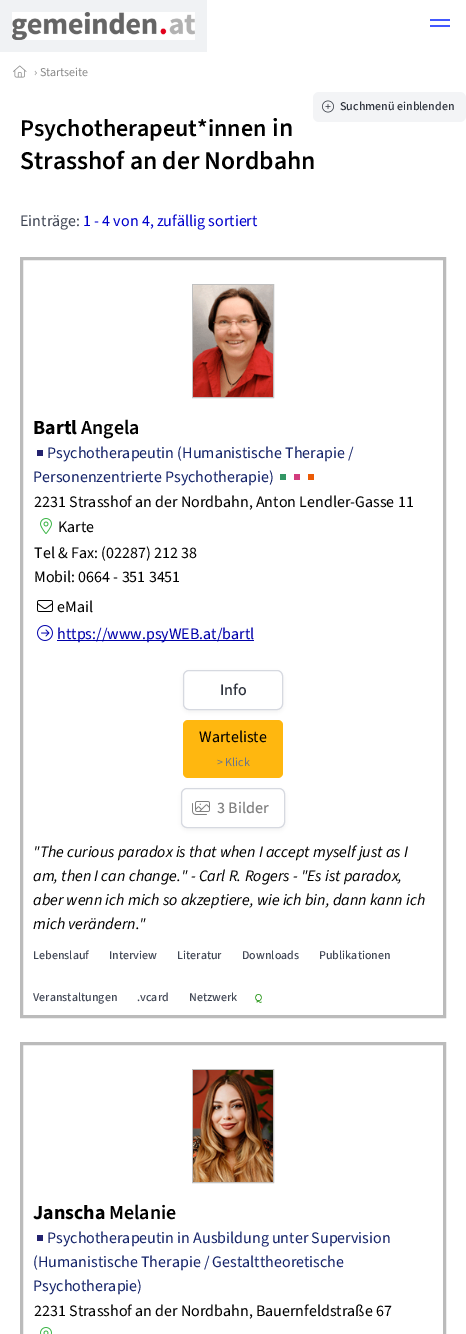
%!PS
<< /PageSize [466 1334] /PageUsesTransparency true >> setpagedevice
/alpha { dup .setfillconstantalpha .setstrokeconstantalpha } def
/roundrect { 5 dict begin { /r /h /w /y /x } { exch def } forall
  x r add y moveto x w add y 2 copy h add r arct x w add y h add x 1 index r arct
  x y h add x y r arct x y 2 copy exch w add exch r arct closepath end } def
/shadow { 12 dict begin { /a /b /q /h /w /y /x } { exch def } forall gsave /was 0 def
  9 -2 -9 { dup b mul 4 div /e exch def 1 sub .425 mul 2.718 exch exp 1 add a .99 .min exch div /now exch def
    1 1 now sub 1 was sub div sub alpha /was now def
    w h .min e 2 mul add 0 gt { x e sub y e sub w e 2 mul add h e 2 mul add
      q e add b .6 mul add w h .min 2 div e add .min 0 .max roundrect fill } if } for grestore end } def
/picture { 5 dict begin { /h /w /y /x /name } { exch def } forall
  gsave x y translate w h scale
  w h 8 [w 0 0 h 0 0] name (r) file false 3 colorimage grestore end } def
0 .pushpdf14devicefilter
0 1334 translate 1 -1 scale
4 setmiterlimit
1 setgray
0 0 466 1334 rectfill
0.941 0.949 0.957 setrgbcolor
0 0 207 52 rectfill
(img1.rgb) 12 12 183 28 picture
0.259 0.345 1 setrgbcolor
430 19 20 2 rectfill
430 25 20 2 rectfill
(img2.rgb) 13 65 14 13 picture
/SourceSans3-Regular [12 0 0 -12 0 0] selectfont
0.533 setgray
34 76 moveto (› Startseite) show
0.953 0.957 0.965 setrgbcolor
313 92 153 30 6 roundrect fill
(img3.rgb) 322 100 12 13 picture
/SourceSans3-Medium [12 0 0 -12 0 0] selectfont
0.18 0.2 0.239 setrgbcolor
340 110 moveto (Suchmenü einblenden) show
/SourceSans3-SemiBold [24 0 0 -24 0 0] selectfont
0 setgray
20 136 moveto (Psychotherapeut*innen) show
/SourceSans3-SemiBold [25.6 0 0 -25.6 0 0] selectfont
272 136 moveto (in) show
20 169 moveto (Strasshof an der Nordbahn) show
/SourceSans3-Regular [16 0 0 -16 0 0] selectfont
0.251 0.275 0.329 setrgbcolor
20 226 moveto (Einträge:) show
0 0 0.8 setrgbcolor
83 226 moveto (1 - 4 von 4, zufällig sortiert) show
0.733 setgray
3 setlinewidth
21.5 258.5 423 758 rectstroke
0.753 setgray
1 setlinewidth
192.5 284.5 81 113 rectstroke
(img4.rgb) 193 285 80 112 picture
/SourceSans3-Bold [20 0 0 -20 0 0] selectfont
0 setgray
33 434 moveto (Bartl) show
/SourceSans3-SemiBold [20 0 0 -20 0 0] selectfont
81 434 moveto (Angela) show
/SourceSans3-Regular [16 0 0 -16 0 0] selectfont
0.078 0.137 0.412 setrgbcolor
47 458 moveto (Psychotherapeutin \(Humanistische Therapie /) show
0.137 0.133 0.431 setrgbcolor
37 450 6 6 rectfill
0.078 0.137 0.412 setrgbcolor
33 482 moveto (Personenzentrierte Psychotherapie\)) show
0.196 0.588 0.392 setrgbcolor
280 474 6 6 rectfill
0.824 0.235 0.49 setrgbcolor
294 474 6 6 rectfill
0.922 0.353 0.02 setrgbcolor
308 474 6 6 rectfill
0 setgray
34 507 moveto (2231 Strasshof an der Nordbahn, Anton Lendler-Gasse 11) show
(img5.rgb) 40 518 12 16 picture
58 532 moveto (Karte) show
34 558 moveto (Tel & Fax: \(02287\) 212 38) show
34 582 moveto (Mobil: 0664 - 351 3451) show
(img6.rgb) 37 600 16 12 picture
57 612 moveto (eMail) show
(img7.rgb) 37 625 16 16 picture
0 0 0.667 setrgbcolor
57 640 197 1 rectfill
57 639 moveto (https://www.psyWEB.at/bartl) show
0.2 setgray
183 672 100 40 6 2 0.05 shadow
1 setgray
183.5 670.5 99 39 5.5 roundrect gsave fill grestore
0.839 0.851 0.878 setrgbcolor
stroke
/SourceSans3-Medium [16 0 0 -16 0 0] selectfont
0.18 0.2 0.239 setrgbcolor
220 695 moveto (Info) show
1 0.718 0.059 setrgbcolor
183 720 100 58 5 roundrect fill
/SourceSans3-Regular [16 0 0 -16 0 0] selectfont
0 setgray
199 742 moveto (Warteliste) show
/SourceSans3-Regular [12 0 0 -12 0 0] selectfont
0.412 0.455 0.549 setrgbcolor
217 766 moveto (> Klick) show
0.2 setgray
181 790 104 40 6 2 0.05 shadow
1 setgray
181.5 788.5 103 39 5.5 roundrect gsave fill grestore
0.839 0.851 0.878 setrgbcolor
stroke
(img8.rgb) 192 801 18 14 picture
/SourceSans3-Medium [16 0 0 -16 0 0] selectfont
0.502 setgray
217 813 moveto (3 Bilder) show
/SourceSans3-Italic [16 0 0 -16 0 0] selectfont
0 setgray
33 857 moveto ("The curious paradox is that when I accept myself just as I) show
33 881 moveto (am, then I can change." - Carl R. Rogers - "Es ist paradox,) show
33 905 moveto (aber wenn ich mich so akzeptiere, wie ich bin, dann kann ich) show
33 929 moveto (mich verändern.") show
/SourceSans3-Medium [12 0 0 -12 0 0] selectfont
0.251 0.275 0.329 setrgbcolor
33 959 moveto (Lebenslauf) show
109 959 moveto (Interview) show
177 959 moveto (Literatur) show
242 959 moveto (Downloads) show
319 959 moveto (Publikationen) show
33 1001 moveto (Veranstaltungen) show
137 1001 moveto (.vcard) show
189 1001 moveto (Netzwerk) show
(img9.rgb) 255 994 7 9 picture
0.733 setgray
3 setlinewidth
21.5 1043.5 423 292 rectstroke
0.753 setgray
1 setlinewidth
192.5 1069.5 81 113 rectstroke
(img10.rgb) 193 1070 80 112 picture
/SourceSans3-Bold [20 0 0 -20 0 0] selectfont
0 setgray
33 1219 moveto (Janscha) show
/SourceSans3-SemiBold [20 0 0 -20 0 0] selectfont
109 1219 moveto (Melanie) show
/SourceSans3-Regular [16 0 0 -16 0 0] selectfont
0.078 0.137 0.412 setrgbcolor
47 1243 moveto (Psychotherapeutin in Ausbildung unter Supervision) show
0.137 0.133 0.431 setrgbcolor
37 1235 6 6 rectfill
0.078 0.137 0.412 setrgbcolor
33 1267 moveto (\(Humanistische Therapie / Gestalttheoretische) show
33 1291 moveto (Psychotherapie\)) show
0 setgray
34 1316 moveto (2231 Strasshof an der Nordbahn, Bauernfeldstraße 67) show
(img11.rgb) 40 1327 12 7 picture
.poppdf14devicefilter showpage
